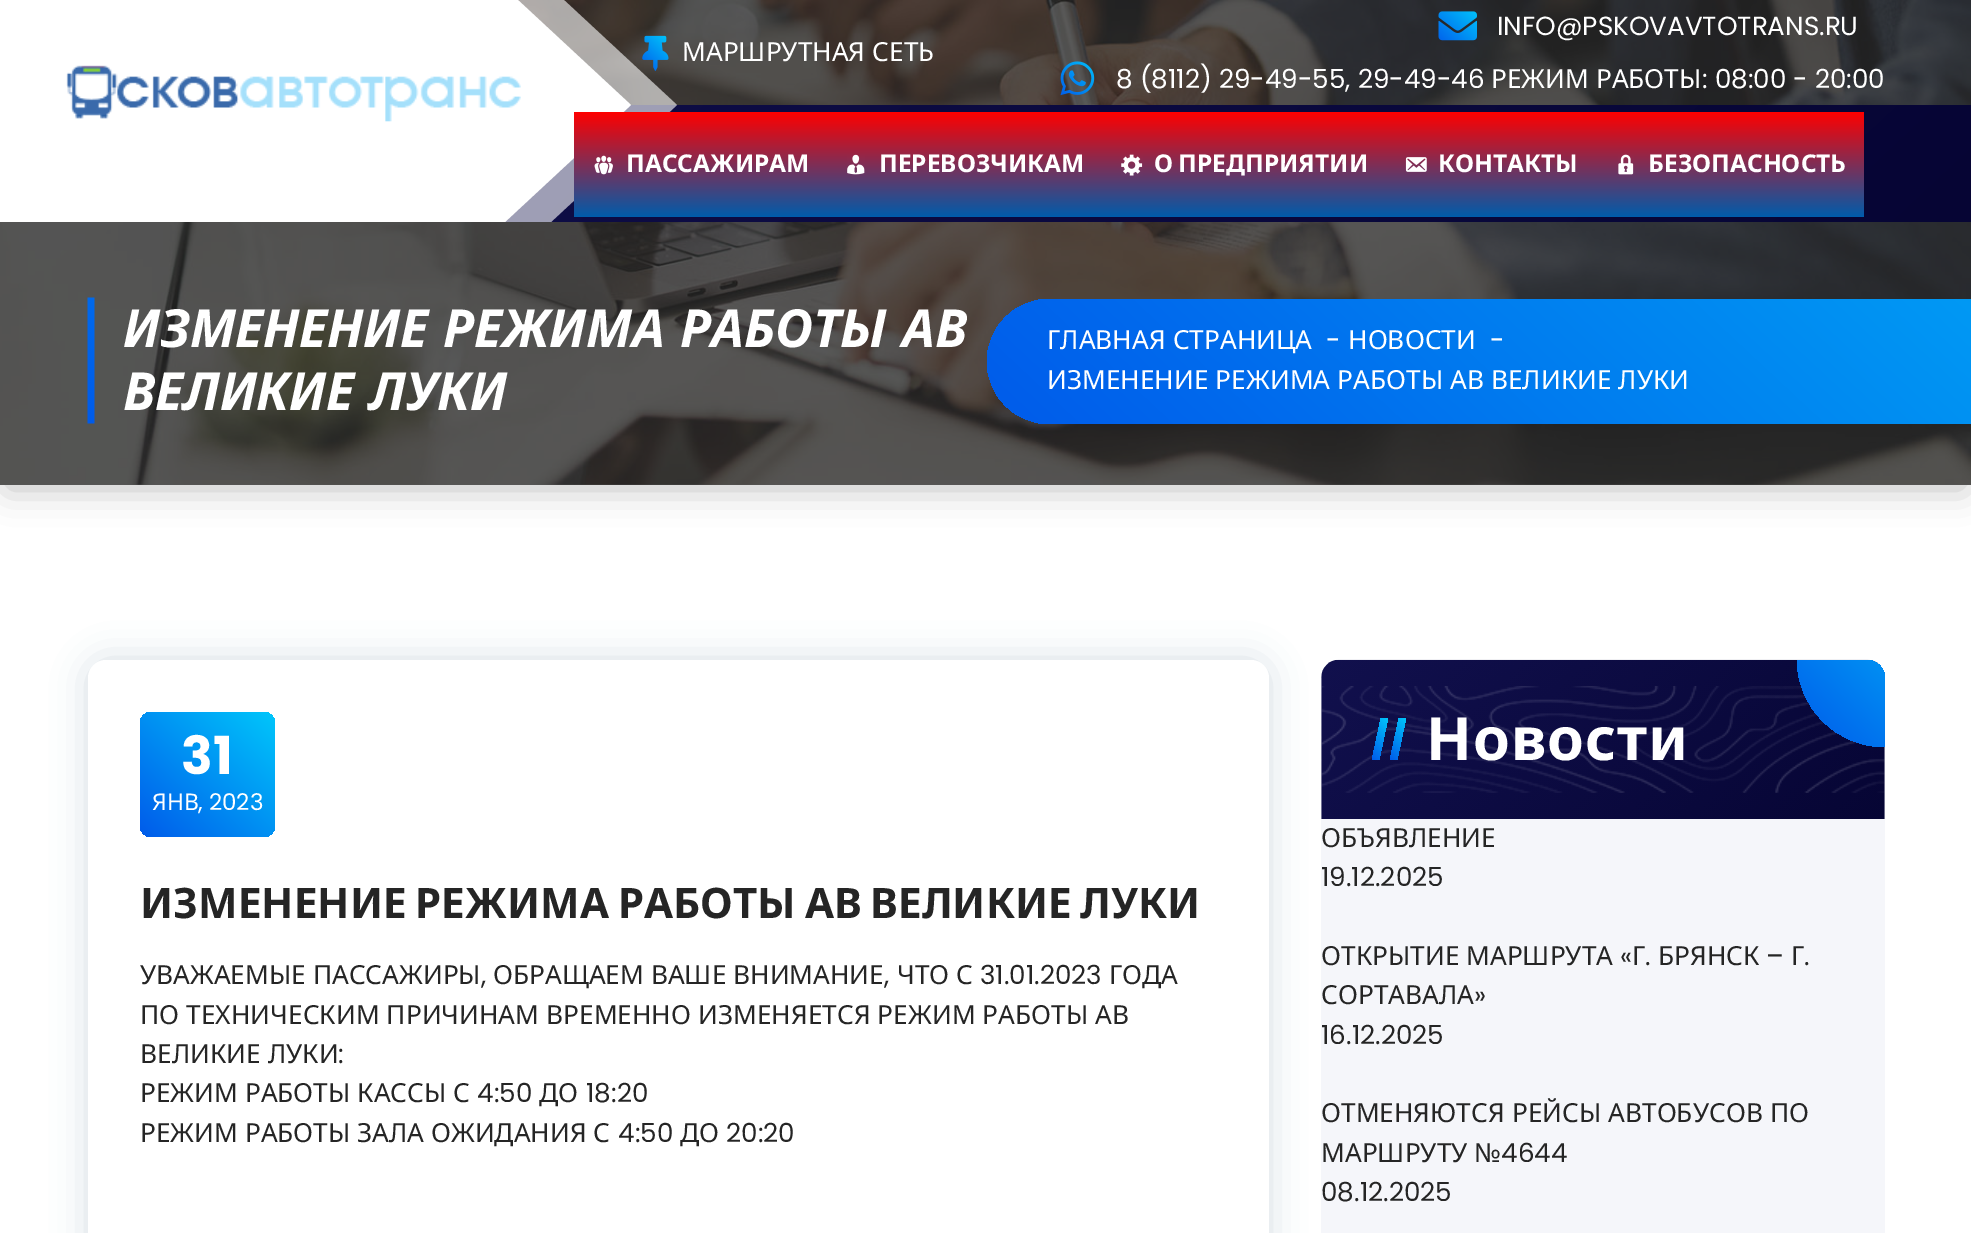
%!PS
<< /PageSize [1971 1233] /PageUsesTransparency true >> setpagedevice
/alpha { dup .setfillconstantalpha .setstrokeconstantalpha } def
/roundrect { 5 dict begin { /r /h /w /y /x } { exch def } forall
  x r add y moveto x w add y 2 copy h add r arct x w add y h add x 1 index r arct
  x y h add x y r arct x y 2 copy exch w add exch r arct closepath end } def
/shadow { 12 dict begin { /a /b /q /h /w /y /x } { exch def } forall gsave /was 0 def
  9 -2 -9 { dup b mul 4 div /e exch def 1 sub .425 mul 2.718 exch exp 1 add a .99 .min exch div /now exch def
    1 1 now sub 1 was sub div sub alpha /was now def
    w h .min e 2 mul add 0 gt { x e sub y e sub w e 2 mul add h e 2 mul add
      q e add b .6 mul add w h .min 2 div e add .min 0 .max roundrect fill } if } for grestore end } def
/picture { 5 dict begin { /h /w /y /x /name } { exch def } forall
  gsave x y translate w h scale
  w h 8 [w 0 0 h 0 0] name (r) file false 3 colorimage grestore end } def
0 .pushpdf14devicefilter
0 1233 translate 1 -1 scale
4 setmiterlimit
1 setgray
0 0 1971 1233 rectfill
0 setgray
7 18 1958 470 0 17.5 0.25 shadow
(img10.rgb) 0 0 1971 485 picture
0.75 alpha
0.145 setgray
0 0 1971 485 rectfill
1 alpha
(img1.rgb) 642 35 27 36 picture
/NotoSans-Regular [26.25 0 0 -26.25 0 0] selectfont
1 setgray
682 61 moveto 0.25 0 32 (МАРШРУТНАЯ СЕТЬ) widthshow
(img2.rgb) 1438 11 39 30 picture
/Poppins-Regular [26.25 0 0 -26.25 0 0] selectfont
1497 35 moveto (INFO@PSKOVAVTOTRANS.RU) show
(img3.rgb) 1060 61 35 35 picture
1116 88 moveto (8 \(8112\) 29-49-55, 29-49-46) show
/NotoSans-Regular [26.25 0 0 -26.25 0 0] selectfont
1491 88 moveto (РЕЖИМ РАБОТЫ) show
/Poppins-Regular [26.25 0 0 -26.25 0 0] selectfont
1702 88 moveto (: 08:00 - 20:00) show
gsave newpath 505 105 moveto 1971 105 lineto 1971 222 lineto 505 222 lineto closepath clip newpath
<< /ShadingType 2 /ColorSpace /DeviceRGB /Coords [498 -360 1474 687] /Extend [true true] /Function << /FunctionType 2 /Domain [0 1] /C0 [0.067 0.063 0.302] /C1 [0.024 0.02 0.204] /N 1 >> >> shfill grestore
newpath 0 -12 moveto 0 222 lineto 505 222 lineto 631 105 lineto 505 -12 lineto closepath fill
0.6 alpha
newpath 46 -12 moveto 551 -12 lineto 677 105 lineto 551 222 lineto 46 222 lineto closepath fill
1 alpha
(img4.rgb) 66 65 455 57 picture
gsave newpath 574 112 moveto 826 112 lineto 826 217 lineto 574 217 lineto closepath clip newpath
<< /ShadingType 2 /ColorSpace /DeviceRGB /Coords [700 112 700 217] /Extend [true true] /Function << /FunctionType 2 /Domain [0 1] /C0 [1 0 0] /C1 [0 0.361 0.671] /N 1 >> >> shfill grestore
(img5.rgb) 594 155 19 20 picture
/NotoSans-Bold [24.5 0 0 -24.5 0 0] selectfont
626 172 moveto (ПАССАЖИРАМ) show
gsave newpath 826 112 moveto 1103 112 lineto 1103 217 lineto 826 217 lineto closepath clip newpath
<< /ShadingType 2 /ColorSpace /DeviceRGB /Coords [964 112 964 217] /Extend [true true] /Function << /FunctionType 2 /Domain [0 1] /C0 [1 0 0] /C1 [0 0.361 0.671] /N 1 >> >> shfill grestore
(img6.rgb) 847 154 18 21 picture
879 172 moveto (ПЕРЕВОЗЧИКАМ) show
gsave newpath 1103 112 moveto 1386 112 lineto 1386 217 lineto 1103 217 lineto closepath clip newpath
<< /ShadingType 2 /ColorSpace /DeviceRGB /Coords [1244 112 1244 217] /Extend [true true] /Function << /FunctionType 2 /Domain [0 1] /C0 [1 0 0] /C1 [0 0.361 0.671] /N 1 >> >> shfill grestore
(img7.rgb) 1121 154 22 22 picture
1154 172 moveto -1 0 32 (О ПРЕДПРИЯТИИ) widthshow
gsave newpath 1386 112 moveto 1596 112 lineto 1596 217 lineto 1386 217 lineto closepath clip newpath
<< /ShadingType 2 /ColorSpace /DeviceRGB /Coords [1491 112 1491 217] /Extend [true true] /Function << /FunctionType 2 /Domain [0 1] /C0 [1 0 0] /C1 [0 0.361 0.671] /N 1 >> >> shfill grestore
(img8.rgb) 1405 157 22 15 picture
1438 172 moveto (КОНТАКТЫ) show
gsave newpath 1596 112 moveto 1864 112 lineto 1864 217 lineto 1596 217 lineto closepath clip newpath
<< /ShadingType 2 /ColorSpace /DeviceRGB /Coords [1730 112 1730 217] /Extend [true true] /Function << /FunctionType 2 /Domain [0 1] /C0 [1 0 0] /C1 [0 0.361 0.671] /N 1 >> >> shfill grestore
(img9.rgb) 1618 154 16 21 picture
1648 172 moveto (БЕЗОПАСНОСТЬ) show
(img11.rgb) 87 297 8 127 picture
/NotoSans-BoldItalic [52.5 0 0 -52.5 0 0] selectfont
123 347 moveto 2 0 32 (ИЗМЕНЕНИЕ РЕЖИМА РАБОТЫ АВ) widthshow
123 410 moveto 2 0 32 (ВЕЛИКИЕ ЛУКИ) widthshow
gsave newpath 1049.5 299 moveto 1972 299 lineto 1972 424 lineto 1049.5 424 lineto 1015 424 987 396 987 361.5 curveto 987 327 1015 299 1049.5 299 curveto closepath clip newpath
<< /ShadingType 2 /ColorSpace /DeviceRGB /Coords [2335 -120 1437 843] /Extend [true true] /Function << /FunctionType 2 /Domain [0 1] /C0 [0 0.776 0.984] /C1 [0 0.357 0.918] /N 1 >> >> shfill grestore
/NotoSans-Regular [26.25 0 0 -26.25 0 0] selectfont
1047 349 moveto 0.25 0 32 (ГЛАВНАЯ СТРАНИЦА) widthshow
/Poppins-Regular [26.25 0 0 -26.25 0 0] selectfont
1326 349 moveto (-) show
/NotoSans-Regular [26.25 0 0 -26.25 0 0] selectfont
1348 349 moveto (НОВОСТИ) show
/Poppins-Regular [26.25 0 0 -26.25 0 0] selectfont
1490 349 moveto (-) show
/NotoSans-Regular [26.25 0 0 -26.25 0 0] selectfont
1047 389 moveto 0.25 0 32 (ИЗМЕНЕНИЕ РЕЖИМА РАБОТЫ АВ ВЕЛИКИЕ ЛУКИ) widthshow
0.129 0.267 0.384 setrgbcolor
88 660 1181 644 18 17.5 0.19 shadow
1 setgray
88 660 1181 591 18 roundrect fill
gsave 140 712 135 125 11 roundrect clip newpath
<< /ShadingType 2 /ColorSpace /DeviceRGB /Coords [270 708 145 841] /Extend [true true] /Function << /FunctionType 2 /Domain [0 1] /C0 [0 0.776 0.984] /C1 [0 0.357 0.918] /N 1 >> >> shfill grestore
/Poppins-Bold [52.5 0 0 -52.5 0 0] selectfont
181 774 moveto (31) show
/NotoSans-Regular [23 0 0 -23 0 0] selectfont
152 810 moveto (ЯНВ) show
/Poppins-Regular [23 0 0 -23 0 0] selectfont
198 810 moveto (, 2023) show
/NotoSans-Bold [42 0 0 -42 0 0] selectfont
0.145 setgray
140 918 moveto -2 0 32 (ИЗМЕНЕНИЕ РЕЖИМА РАБОТЫ АВ ВЕЛИКИЕ ЛУКИ) widthshow
/NotoSans-Regular [26.25 0 0 -26.25 0 0] selectfont
140 984 moveto (УВАЖАЕМЫЕ ПАССАЖИРЫ) show
/Poppins-Regular [26.25 0 0 -26.25 0 0] selectfont
481 984 moveto (,) show
/NotoSans-Regular [26.25 0 0 -26.25 0 0] selectfont
493 984 moveto (ОБРАЩАЕМ ВАШЕ ВНИМАНИЕ) show
/Poppins-Regular [26.25 0 0 -26.25 0 0] selectfont
884 984 moveto (,) show
/NotoSans-Regular [26.25 0 0 -26.25 0 0] selectfont
897 984 moveto (ЧТО С) show
/Poppins-Regular [26.25 0 0 -26.25 0 0] selectfont
980 984 moveto (31.01.2023) show
/NotoSans-Regular [26.25 0 0 -26.25 0 0] selectfont
1109 984 moveto (ГОДА) show
140 1024 moveto 0.25 0 32 (ПО ТЕХНИЧЕСКИМ ПРИЧИНАМ ВРЕМЕННО ИЗМЕНЯЕТСЯ РЕЖИМ РАБОТЫ АВ) widthshow
140 1063 moveto 0.25 0 32 (ВЕЛИКИЕ ЛУКИ) widthshow
/Poppins-Regular [26.25 0 0 -26.25 0 0] selectfont
338 1063 moveto (:) show
/NotoSans-Regular [26.25 0 0 -26.25 0 0] selectfont
140 1102 moveto (РЕЖИМ РАБОТЫ КАССЫ С) show
/Poppins-Regular [26.25 0 0 -26.25 0 0] selectfont
477 1102 moveto (4:50) show
/NotoSans-Regular [26.25 0 0 -26.25 0 0] selectfont
539 1102 moveto (ДО) show
/Poppins-Regular [26.25 0 0 -26.25 0 0] selectfont
586 1102 moveto (18:20) show
/NotoSans-Regular [26.25 0 0 -26.25 0 0] selectfont
140 1142 moveto (РЕЖИМ РАБОТЫ ЗАЛА ОЖИДАНИЯ С) show
/Poppins-Regular [26.25 0 0 -26.25 0 0] selectfont
618 1142 moveto (4:50) show
/NotoSans-Regular [26.25 0 0 -26.25 0 0] selectfont
680 1142 moveto (ДО) show
/Poppins-Regular [26.25 0 0 -26.25 0 0] selectfont
726 1142 moveto (20:20) show
0.961 0.965 0.98 setrgbcolor
1321 660 564 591 18 roundrect fill
(img12.rgb) 1321 659 564 160 picture
gsave newpath 1381 718 moveto 1388 718 lineto 1379 760 lineto 1372 760 lineto closepath clip newpath
<< /ShadingType 2 /ColorSpace /DeviceRGB /Coords [1395 726 1365 752] /Extend [true true] /Function << /FunctionType 2 /Domain [0 1] /C0 [0 0.776 0.984] /C1 [0 0.357 0.918] /N 1 >> >> shfill grestore
gsave newpath 1399 718 moveto 1406 718 lineto 1397 760 lineto 1390 760 lineto closepath clip newpath
<< /ShadingType 2 /ColorSpace /DeviceRGB /Coords [1413 726 1383 752] /Extend [true true] /Function << /FunctionType 2 /Domain [0 1] /C0 [0 0.776 0.984] /C1 [0 0.357 0.918] /N 1 >> >> shfill grestore
/NotoSans-Bold [59.5 0 0 -59.5 0 0] selectfont
1 setgray
1426 760 moveto 1 0 (Новости) ashow
gsave
1321 660 564 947 18 roundrect clip newpath
gsave newpath 1884.5 659.5 87.5 0 360 arc closepath clip newpath
<< /ShadingType 2 /ColorSpace /DeviceRGB /Coords [1969 569 1800 750] /Extend [true true] /Function << /FunctionType 2 /Domain [0 1] /C0 [0 0.776 0.984] /C1 [0 0.357 0.918] /N 1 >> >> shfill grestore
grestore
/NotoSans-Regular [26.25 0 0 -26.25 0 0] selectfont
0.145 setgray
1321 847 moveto (ОБЪЯВЛЕНИЕ) show
/Poppins-Regular [26.25 0 0 -26.25 0 0] selectfont
1321 886 moveto (19.12.2025) show
/NotoSans-Regular [26.25 0 0 -26.25 0 0] selectfont
1321 965 moveto (ОТКРЫТИЕ МАРШРУТА) show
/Poppins-Regular [26.25 0 0 -26.25 0 0] selectfont
1620 965 moveto («) show
/NotoSans-Regular [26.25 0 0 -26.25 0 0] selectfont
1632 965 moveto (Г) show
1658 965 moveto (БРЯНСК) show
/Poppins-Regular [26.25 0 0 -26.25 0 0] selectfont
1766 965 moveto (–) show
/NotoSans-Regular [26.25 0 0 -26.25 0 0] selectfont
1791 965 moveto (Г) show
/Poppins-Regular [26.25 0 0 -26.25 0 0] selectfont
1645 965 moveto (.) show
1804 965 moveto (.) show
/NotoSans-Regular [26.25 0 0 -26.25 0 0] selectfont
1321 1004 moveto (СОРТАВАЛА) show
/Poppins-Regular [26.25 0 0 -26.25 0 0] selectfont
1474 1004 moveto (») show
1321 1044 moveto (16.12.2025) show
/NotoSans-Regular [26.25 0 0 -26.25 0 0] selectfont
1321 1122 moveto 0.25 0 32 (ОТМЕНЯЮТСЯ РЕЙСЫ АВТОБУСОВ ПО) widthshow
1321 1162 moveto 0.25 0 32 (МАРШРУТУ №) widthshow
/Poppins-Regular [26.25 0 0 -26.25 0 0] selectfont
1501 1162 moveto (4644) show
1321 1201 moveto (08.12.2025) show
.poppdf14devicefilter showpage
